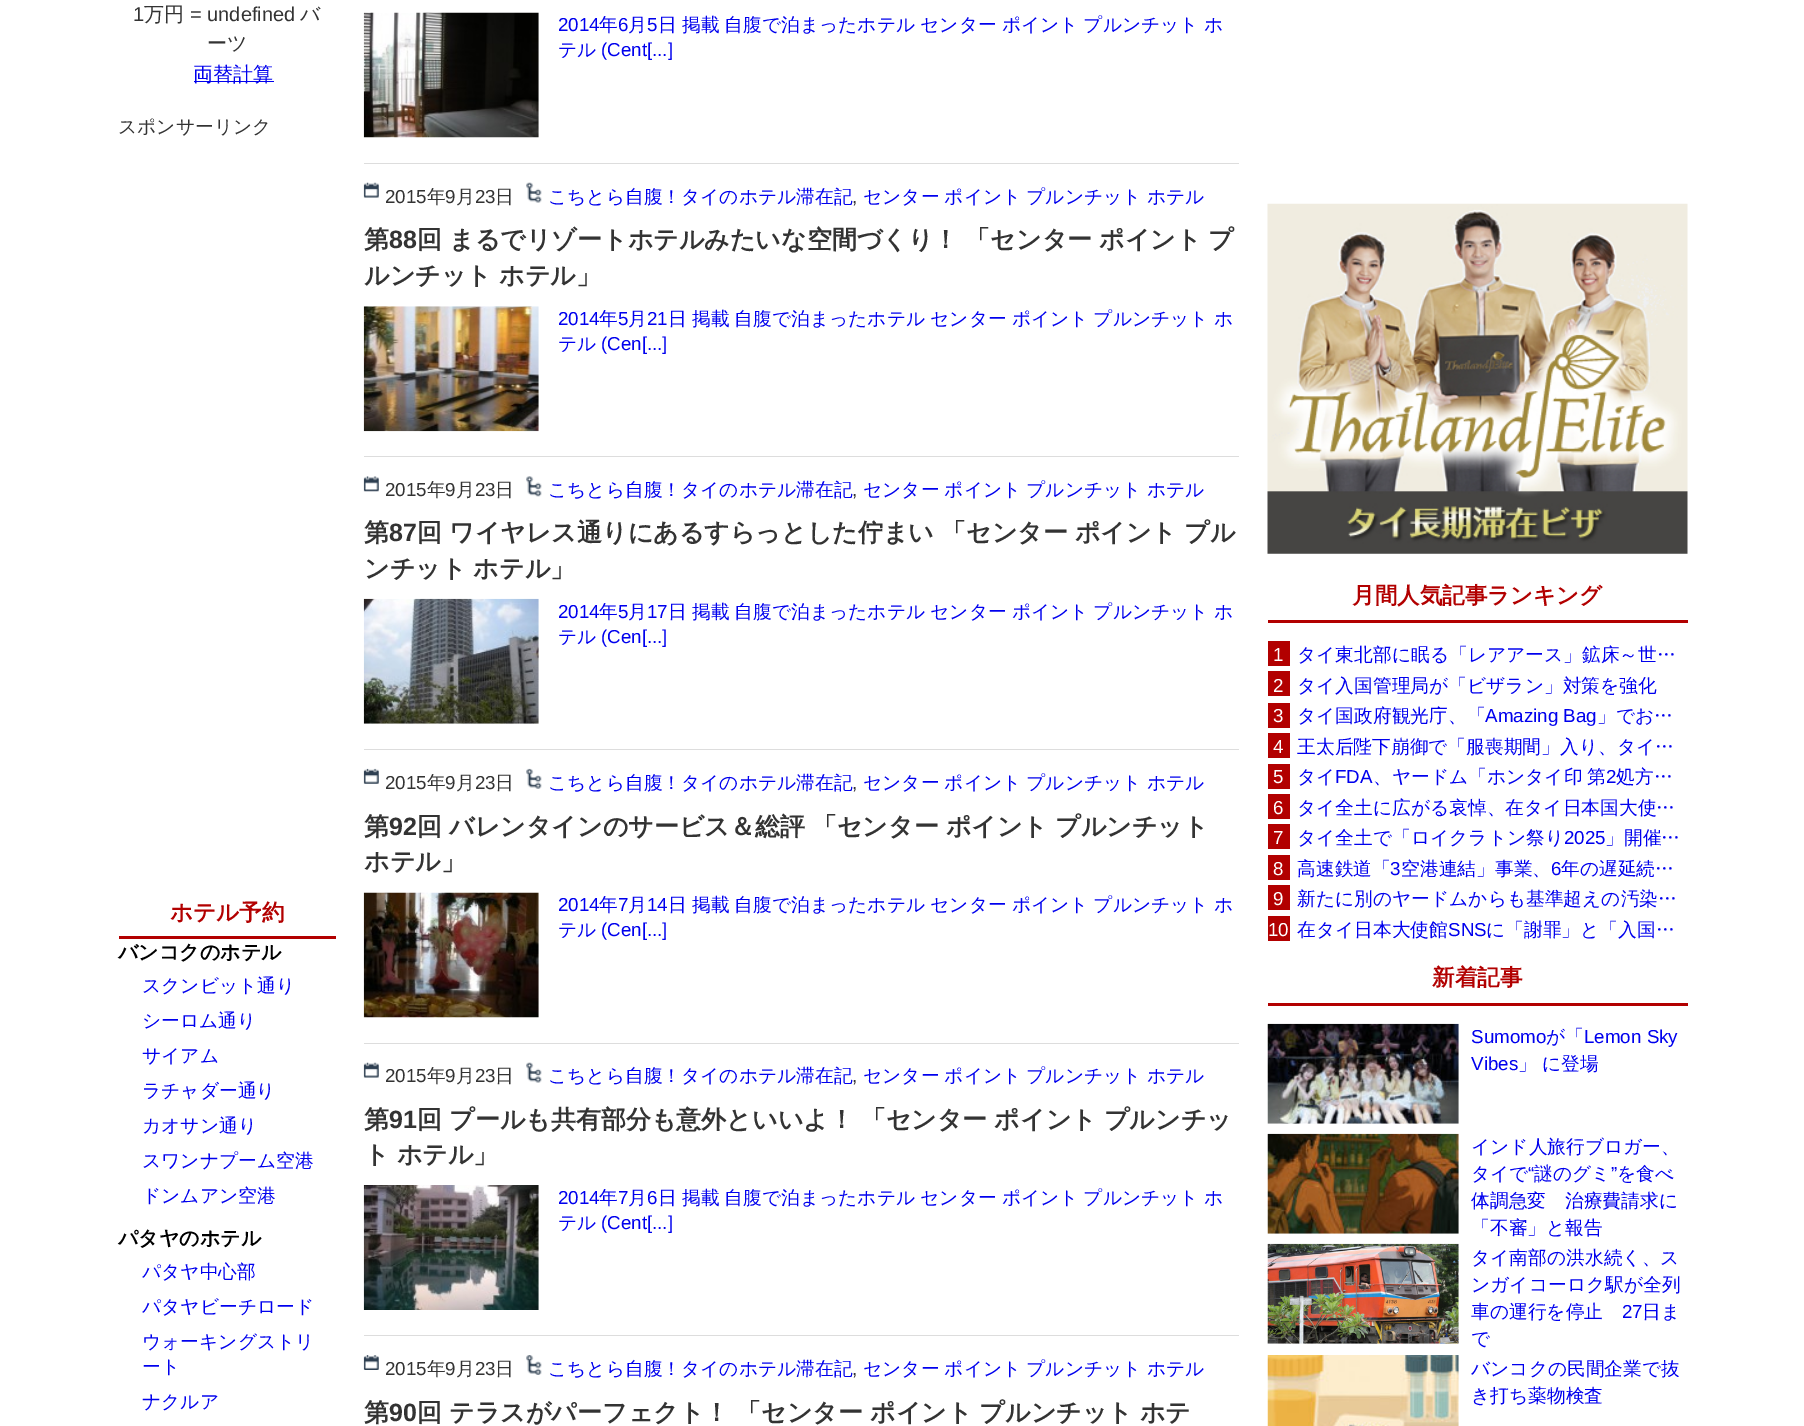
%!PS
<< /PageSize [1804 1426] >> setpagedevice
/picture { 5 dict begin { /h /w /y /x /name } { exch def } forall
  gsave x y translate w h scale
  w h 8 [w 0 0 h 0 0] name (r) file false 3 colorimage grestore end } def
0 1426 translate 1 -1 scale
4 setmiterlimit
1 setgray
0 0 1804 1426 rectfill
/LiberationSans-Regular [20 0 0 -20 0 0] selectfont
0.2 setgray
133 21 moveto (1) show
/WenQuanYiZenHei-Medium [20 0 0 -20 0 0] selectfont
144 21 moveto (万円) show
/LiberationSans-Regular [20 0 0 -20 0 0] selectfont
190 21 moveto (= undefined) show
/WenQuanYiZenHei-Medium [20 0 0 -20 0 0] selectfont
300 21 moveto (バ) show
207 50 moveto (ーツ) show
0 0 0.933 setrgbcolor
194 81 80 1 rectfill
193 81 moveto (両替計算) show
/WenQuanYiZenHei-Medium [18.75 0 0 -18.75 0 0] selectfont
0.2 setgray
118 133 moveto (スポンサーリンク) show
0.698 0 0 setrgbcolor
119 936 217 3 rectfill
/WenQuanYiZenHei-Bold [22.5 0 0 -22.5 0 0] selectfont
170 920 moveto (ホテル予約) show
/WenQuanYiZenHei-Bold [20 0 0 -20 0 0] selectfont
0 setgray
118 959 moveto (バンコクのホテル) show
/WenQuanYiZenHei-Medium [18.75 0 0 -18.75 0 0] selectfont
0 0 0.933 setrgbcolor
142 992 moveto (スクンビット通り) show
142 1027 moveto (シーロム通り) show
142 1062 moveto (サイアム) show
142 1097 moveto (ラチャダー通り) show
142 1132 moveto (カオサン通り) show
142 1167 moveto (スワンナプーム空港) show
142 1202 moveto (ドンムアン空港) show
/WenQuanYiZenHei-Bold [20 0 0 -20 0 0] selectfont
0 setgray
118 1245 moveto (パタヤのホテル) show
/WenQuanYiZenHei-Medium [18.75 0 0 -18.75 0 0] selectfont
0 0 0.933 setrgbcolor
142 1278 moveto (パタヤ中心部) show
142 1313 moveto (パタヤビーチロード) show
142 1348 moveto (ウォーキングストリ) show
142 1373 moveto (ート) show
142 1408 moveto (ナクルア) show
0.867 setgray
364 163 875 1 rectfill
(img1.rgb) 363 12 176 126 picture
/LiberationSans-Regular [18.75 0 0 -18.75 0 0] selectfont
0 0 0.933 setrgbcolor
558 31 moveto (2014) show
/WenQuanYiZenHei-Medium [18.75 0 0 -18.75 0 0] selectfont
599 31 moveto (年) show
/LiberationSans-Regular [18.75 0 0 -18.75 0 0] selectfont
618 31 moveto (6) show
/WenQuanYiZenHei-Medium [18.75 0 0 -18.75 0 0] selectfont
628 31 moveto (月) show
/LiberationSans-Regular [18.75 0 0 -18.75 0 0] selectfont
647 31 moveto (5) show
/WenQuanYiZenHei-Medium [18.75 0 0 -18.75 0 0] selectfont
658 31 moveto -0.5 0 32 (日 掲載 自腹で泊まったホテル センター ポイント プルンチット ホ) widthshow
558 56 moveto (テル) show
/LiberationSans-Regular [18.75 0 0 -18.75 0 0] selectfont
601 56 moveto (\(Cent[...]) show
0.867 setgray
364 456 875 1 rectfill
(img2.rgb) 363 182 16 16 picture
0.2 setgray
385 203 moveto (2015) show
/WenQuanYiZenHei-Medium [18.75 0 0 -18.75 0 0] selectfont
427 203 moveto (年) show
/LiberationSans-Regular [18.75 0 0 -18.75 0 0] selectfont
445 203 moveto (9) show
/WenQuanYiZenHei-Medium [18.75 0 0 -18.75 0 0] selectfont
456 203 moveto (月) show
/LiberationSans-Regular [18.75 0 0 -18.75 0 0] selectfont
475 203 moveto (23) show
/WenQuanYiZenHei-Medium [18.75 0 0 -18.75 0 0] selectfont
495 203 moveto (日) show
(img3.rgb) 526 182 16 21 picture
0 0 0.933 setrgbcolor
548 203 moveto (こちとら自腹！タイのホテル滞在記) show
/LiberationSans-Regular [18.75 0 0 -18.75 0 0] selectfont
0.2 setgray
852 203 moveto (,) show
/WenQuanYiZenHei-Medium [18.75 0 0 -18.75 0 0] selectfont
0 0 0.933 setrgbcolor
863 203 moveto -0.5 0 32 (センター ポイント プルンチット ホテル) widthshow
/WenQuanYiZenHei-Bold [25 0 0 -25 0 0] selectfont
0.2 setgray
364 248 moveto (第) show
/LiberationSans-Bold [25 0 0 -25 0 0] selectfont
389 248 moveto (88) show
/WenQuanYiZenHei-Bold [25 0 0 -25 0 0] selectfont
417 248 moveto -0.5 0 32 (回 まるでリゾートホテルみたいな空間づくり！ 「センター ポイント プ) widthshow
364 284 moveto -0.5 0 32 (ルンチット ホテル」) widthshow
(img4.rgb) 363 306 176 126 picture
/LiberationSans-Regular [18.75 0 0 -18.75 0 0] selectfont
0 0 0.933 setrgbcolor
558 325 moveto (2014) show
/WenQuanYiZenHei-Medium [18.75 0 0 -18.75 0 0] selectfont
599 325 moveto (年) show
/LiberationSans-Regular [18.75 0 0 -18.75 0 0] selectfont
618 325 moveto (5) show
/WenQuanYiZenHei-Medium [18.75 0 0 -18.75 0 0] selectfont
628 325 moveto (月) show
/LiberationSans-Regular [18.75 0 0 -18.75 0 0] selectfont
647 325 moveto (21) show
/WenQuanYiZenHei-Medium [18.75 0 0 -18.75 0 0] selectfont
668 325 moveto -0.5 0 32 (日 掲載 自腹で泊まったホテル センター ポイント プルンチット ホ) widthshow
558 350 moveto (テル) show
/LiberationSans-Regular [18.75 0 0 -18.75 0 0] selectfont
601 350 moveto (\(Cen[...]) show
0.867 setgray
364 749 875 1 rectfill
(img5.rgb) 363 476 16 16 picture
0.2 setgray
385 496 moveto (2015) show
/WenQuanYiZenHei-Medium [18.75 0 0 -18.75 0 0] selectfont
427 496 moveto (年) show
/LiberationSans-Regular [18.75 0 0 -18.75 0 0] selectfont
445 496 moveto (9) show
/WenQuanYiZenHei-Medium [18.75 0 0 -18.75 0 0] selectfont
456 496 moveto (月) show
/LiberationSans-Regular [18.75 0 0 -18.75 0 0] selectfont
475 496 moveto (23) show
/WenQuanYiZenHei-Medium [18.75 0 0 -18.75 0 0] selectfont
495 496 moveto (日) show
(img6.rgb) 526 476 16 21 picture
0 0 0.933 setrgbcolor
548 496 moveto (こちとら自腹！タイのホテル滞在記) show
/LiberationSans-Regular [18.75 0 0 -18.75 0 0] selectfont
0.2 setgray
852 496 moveto (,) show
/WenQuanYiZenHei-Medium [18.75 0 0 -18.75 0 0] selectfont
0 0 0.933 setrgbcolor
863 496 moveto -0.5 0 32 (センター ポイント プルンチット ホテル) widthshow
/WenQuanYiZenHei-Bold [25 0 0 -25 0 0] selectfont
0.2 setgray
364 541 moveto (第) show
/LiberationSans-Bold [25 0 0 -25 0 0] selectfont
389 541 moveto (87) show
/WenQuanYiZenHei-Bold [25 0 0 -25 0 0] selectfont
417 541 moveto -0.5 0 32 (回 ワイヤレス通りにあるすらっとした佇まい 「センター ポイント プル) widthshow
364 577 moveto -0.5 0 32 (ンチット ホテル」) widthshow
(img7.rgb) 363 598 176 126 picture
/LiberationSans-Regular [18.75 0 0 -18.75 0 0] selectfont
0 0 0.933 setrgbcolor
558 618 moveto (2014) show
/WenQuanYiZenHei-Medium [18.75 0 0 -18.75 0 0] selectfont
599 618 moveto (年) show
/LiberationSans-Regular [18.75 0 0 -18.75 0 0] selectfont
618 618 moveto (5) show
/WenQuanYiZenHei-Medium [18.75 0 0 -18.75 0 0] selectfont
628 618 moveto (月) show
/LiberationSans-Regular [18.75 0 0 -18.75 0 0] selectfont
647 618 moveto (17) show
/WenQuanYiZenHei-Medium [18.75 0 0 -18.75 0 0] selectfont
668 618 moveto -0.5 0 32 (日 掲載 自腹で泊まったホテル センター ポイント プルンチット ホ) widthshow
558 643 moveto (テル) show
/LiberationSans-Regular [18.75 0 0 -18.75 0 0] selectfont
601 643 moveto (\(Cen[...]) show
0.867 setgray
364 1043 875 1 rectfill
(img8.rgb) 363 768 16 16 picture
0.2 setgray
385 789 moveto (2015) show
/WenQuanYiZenHei-Medium [18.75 0 0 -18.75 0 0] selectfont
427 789 moveto (年) show
/LiberationSans-Regular [18.75 0 0 -18.75 0 0] selectfont
445 789 moveto (9) show
/WenQuanYiZenHei-Medium [18.75 0 0 -18.75 0 0] selectfont
456 789 moveto (月) show
/LiberationSans-Regular [18.75 0 0 -18.75 0 0] selectfont
475 789 moveto (23) show
/WenQuanYiZenHei-Medium [18.75 0 0 -18.75 0 0] selectfont
495 789 moveto (日) show
(img9.rgb) 526 768 16 21 picture
0 0 0.933 setrgbcolor
548 789 moveto (こちとら自腹！タイのホテル滞在記) show
/LiberationSans-Regular [18.75 0 0 -18.75 0 0] selectfont
0.2 setgray
852 789 moveto (,) show
/WenQuanYiZenHei-Medium [18.75 0 0 -18.75 0 0] selectfont
0 0 0.933 setrgbcolor
863 789 moveto -0.5 0 32 (センター ポイント プルンチット ホテル) widthshow
/WenQuanYiZenHei-Bold [25 0 0 -25 0 0] selectfont
0.2 setgray
364 835 moveto (第) show
/LiberationSans-Bold [25 0 0 -25 0 0] selectfont
389 835 moveto (92) show
/WenQuanYiZenHei-Bold [25 0 0 -25 0 0] selectfont
417 835 moveto -0.5 0 32 (回 バレンタインのサービス＆総評 「センター ポイント プルンチット) widthshow
364 870 moveto (ホテル」) show
(img10.rgb) 363 892 176 126 picture
/LiberationSans-Regular [18.75 0 0 -18.75 0 0] selectfont
0 0 0.933 setrgbcolor
558 911 moveto (2014) show
/WenQuanYiZenHei-Medium [18.75 0 0 -18.75 0 0] selectfont
599 911 moveto (年) show
/LiberationSans-Regular [18.75 0 0 -18.75 0 0] selectfont
618 911 moveto (7) show
/WenQuanYiZenHei-Medium [18.75 0 0 -18.75 0 0] selectfont
628 911 moveto (月) show
/LiberationSans-Regular [18.75 0 0 -18.75 0 0] selectfont
647 911 moveto (14) show
/WenQuanYiZenHei-Medium [18.75 0 0 -18.75 0 0] selectfont
668 911 moveto -0.5 0 32 (日 掲載 自腹で泊まったホテル センター ポイント プルンチット ホ) widthshow
558 936 moveto (テル) show
/LiberationSans-Regular [18.75 0 0 -18.75 0 0] selectfont
601 936 moveto (\(Cen[...]) show
0.867 setgray
364 1335 875 1 rectfill
(img2.rgb) 363 1062 16 16 picture
0.2 setgray
385 1082 moveto (2015) show
/WenQuanYiZenHei-Medium [18.75 0 0 -18.75 0 0] selectfont
427 1082 moveto (年) show
/LiberationSans-Regular [18.75 0 0 -18.75 0 0] selectfont
445 1082 moveto (9) show
/WenQuanYiZenHei-Medium [18.75 0 0 -18.75 0 0] selectfont
456 1082 moveto (月) show
/LiberationSans-Regular [18.75 0 0 -18.75 0 0] selectfont
475 1082 moveto (23) show
/WenQuanYiZenHei-Medium [18.75 0 0 -18.75 0 0] selectfont
495 1082 moveto (日) show
(img3.rgb) 526 1062 16 21 picture
0 0 0.933 setrgbcolor
548 1082 moveto (こちとら自腹！タイのホテル滞在記) show
/LiberationSans-Regular [18.75 0 0 -18.75 0 0] selectfont
0.2 setgray
852 1082 moveto (,) show
/WenQuanYiZenHei-Medium [18.75 0 0 -18.75 0 0] selectfont
0 0 0.933 setrgbcolor
863 1082 moveto -0.5 0 32 (センター ポイント プルンチット ホテル) widthshow
/WenQuanYiZenHei-Bold [25 0 0 -25 0 0] selectfont
0.2 setgray
364 1128 moveto (第) show
/LiberationSans-Bold [25 0 0 -25 0 0] selectfont
389 1128 moveto (91) show
/WenQuanYiZenHei-Bold [25 0 0 -25 0 0] selectfont
417 1128 moveto -0.5 0 32 (回 プールも共有部分も意外といいよ！ 「センター ポイント プルンチッ) widthshow
364 1163 moveto -0.5 0 32 (ト ホテル」) widthshow
(img11.rgb) 363 1185 176 125 picture
/LiberationSans-Regular [18.75 0 0 -18.75 0 0] selectfont
0 0 0.933 setrgbcolor
558 1204 moveto (2014) show
/WenQuanYiZenHei-Medium [18.75 0 0 -18.75 0 0] selectfont
599 1204 moveto (年) show
/LiberationSans-Regular [18.75 0 0 -18.75 0 0] selectfont
618 1204 moveto (7) show
/WenQuanYiZenHei-Medium [18.75 0 0 -18.75 0 0] selectfont
628 1204 moveto (月) show
/LiberationSans-Regular [18.75 0 0 -18.75 0 0] selectfont
647 1204 moveto (6) show
/WenQuanYiZenHei-Medium [18.75 0 0 -18.75 0 0] selectfont
658 1204 moveto -0.5 0 32 (日 掲載 自腹で泊まったホテル センター ポイント プルンチット ホ) widthshow
558 1229 moveto (テル) show
/LiberationSans-Regular [18.75 0 0 -18.75 0 0] selectfont
601 1229 moveto (\(Cent[...]) show
(img12.rgb) 363 1355 16 15 picture
0.2 setgray
385 1375 moveto (2015) show
/WenQuanYiZenHei-Medium [18.75 0 0 -18.75 0 0] selectfont
427 1375 moveto (年) show
/LiberationSans-Regular [18.75 0 0 -18.75 0 0] selectfont
445 1375 moveto (9) show
/WenQuanYiZenHei-Medium [18.75 0 0 -18.75 0 0] selectfont
456 1375 moveto (月) show
/LiberationSans-Regular [18.75 0 0 -18.75 0 0] selectfont
475 1375 moveto (23) show
/WenQuanYiZenHei-Medium [18.75 0 0 -18.75 0 0] selectfont
495 1375 moveto (日) show
(img13.rgb) 526 1355 16 20 picture
0 0 0.933 setrgbcolor
548 1375 moveto (こちとら自腹！タイのホテル滞在記) show
/LiberationSans-Regular [18.75 0 0 -18.75 0 0] selectfont
0.2 setgray
852 1375 moveto (,) show
/WenQuanYiZenHei-Medium [18.75 0 0 -18.75 0 0] selectfont
0 0 0.933 setrgbcolor
863 1375 moveto -0.5 0 32 (センター ポイント プルンチット ホテル) widthshow
/WenQuanYiZenHei-Bold [25 0 0 -25 0 0] selectfont
0.2 setgray
364 1421 moveto (第) show
/LiberationSans-Bold [25 0 0 -25 0 0] selectfont
389 1421 moveto (90) show
/WenQuanYiZenHei-Bold [25 0 0 -25 0 0] selectfont
417 1421 moveto -0.5 0 32 (回 テラスがパーフェクト！ 「センター ポイント プルンチット ホテ) widthshow
(img14.rgb) 1267 203 421 351 picture
0.698 0 0 setrgbcolor
1268 620 420 3 rectfill
/WenQuanYiZenHei-Bold [22.5 0 0 -22.5 0 0] selectfont
1352 603 moveto (月間人気記事ランキング) show
1268 641 22 25 rectfill
/LiberationSans-Regular [18.75 0 0 -18.75 0 0] selectfont
1 setgray
1273 661 moveto (1) show
/WenQuanYiZenHei-Medium [18.75 0 0 -18.75 0 0] selectfont
0 0 0.933 setrgbcolor
1297 661 moveto (タイ東北部に眠る「レアアース」鉱床～世…) show
0.698 0 0 setrgbcolor
1268 671 22 25 rectfill
/LiberationSans-Regular [18.75 0 0 -18.75 0 0] selectfont
1 setgray
1273 692 moveto (2) show
/WenQuanYiZenHei-Medium [18.75 0 0 -18.75 0 0] selectfont
0 0 0.933 setrgbcolor
1297 692 moveto (タイ入国管理局が「ビザラン」対策を強化) show
0.698 0 0 setrgbcolor
1268 703 22 25 rectfill
/LiberationSans-Regular [18.75 0 0 -18.75 0 0] selectfont
1 setgray
1273 722 moveto (3) show
/WenQuanYiZenHei-Medium [18.75 0 0 -18.75 0 0] selectfont
0 0 0.933 setrgbcolor
1297 722 moveto (タイ国政府観光庁、「) show
/LiberationSans-Regular [18.75 0 0 -18.75 0 0] selectfont
1485 722 moveto (Amazing Bag) show
/WenQuanYiZenHei-Medium [18.75 0 0 -18.75 0 0] selectfont
1597 722 moveto (」でお…) show
0.698 0 0 setrgbcolor
1268 733 22 25 rectfill
/LiberationSans-Regular [18.75 0 0 -18.75 0 0] selectfont
1 setgray
1273 753 moveto (4) show
/WenQuanYiZenHei-Medium [18.75 0 0 -18.75 0 0] selectfont
0 0 0.933 setrgbcolor
1297 753 moveto (王太后陛下崩御で「服喪期間」入り、タイ…) show
0.698 0 0 setrgbcolor
1268 764 22 25 rectfill
/LiberationSans-Regular [18.75 0 0 -18.75 0 0] selectfont
1 setgray
1273 783 moveto (5) show
/WenQuanYiZenHei-Medium [18.75 0 0 -18.75 0 0] selectfont
0 0 0.933 setrgbcolor
1297 783 moveto (タイ) show
/LiberationSans-Regular [18.75 0 0 -18.75 0 0] selectfont
1335 783 moveto (FDA) show
/WenQuanYiZenHei-Medium [18.75 0 0 -18.75 0 0] selectfont
1373 783 moveto -0.5 0 32 (、ヤードム「ホンタイ印 第) widthshow
/LiberationSans-Regular [18.75 0 0 -18.75 0 0] selectfont
1606 783 moveto (2) show
/WenQuanYiZenHei-Medium [18.75 0 0 -18.75 0 0] selectfont
1616 783 moveto (処方…) show
0.698 0 0 setrgbcolor
1268 794 22 25 rectfill
/LiberationSans-Regular [18.75 0 0 -18.75 0 0] selectfont
1 setgray
1273 814 moveto (6) show
/WenQuanYiZenHei-Medium [18.75 0 0 -18.75 0 0] selectfont
0 0 0.933 setrgbcolor
1297 814 moveto (タイ全土に広がる哀悼、在タイ日本国大使…) show
0.698 0 0 setrgbcolor
1268 824 22 25 rectfill
/LiberationSans-Regular [18.75 0 0 -18.75 0 0] selectfont
1 setgray
1273 844 moveto (7) show
/WenQuanYiZenHei-Medium [18.75 0 0 -18.75 0 0] selectfont
0 0 0.933 setrgbcolor
1297 844 moveto (タイ全土で「ロイクラトン祭り) show
/LiberationSans-Regular [18.75 0 0 -18.75 0 0] selectfont
1564 844 moveto (2025) show
/WenQuanYiZenHei-Medium [18.75 0 0 -18.75 0 0] selectfont
1605 844 moveto (」開催…) show
0.698 0 0 setrgbcolor
1268 855 22 25 rectfill
/LiberationSans-Regular [18.75 0 0 -18.75 0 0] selectfont
1 setgray
1273 875 moveto (8) show
/WenQuanYiZenHei-Medium [18.75 0 0 -18.75 0 0] selectfont
0 0 0.933 setrgbcolor
1297 875 moveto (高速鉄道「) show
/LiberationSans-Regular [18.75 0 0 -18.75 0 0] selectfont
1390 875 moveto (3) show
/WenQuanYiZenHei-Medium [18.75 0 0 -18.75 0 0] selectfont
1401 875 moveto (空港連結」事業、) show
/LiberationSans-Regular [18.75 0 0 -18.75 0 0] selectfont
1551 875 moveto (6) show
/WenQuanYiZenHei-Medium [18.75 0 0 -18.75 0 0] selectfont
1561 875 moveto (年の遅延続…) show
0.698 0 0 setrgbcolor
1268 885 22 25 rectfill
/LiberationSans-Regular [18.75 0 0 -18.75 0 0] selectfont
1 setgray
1273 905 moveto (9) show
/WenQuanYiZenHei-Medium [18.75 0 0 -18.75 0 0] selectfont
0 0 0.933 setrgbcolor
1297 905 moveto (新たに別のヤードムからも基準超えの汚染…) show
0.698 0 0 setrgbcolor
1268 916 22 25 rectfill
/LiberationSans-Regular [18.75 0 0 -18.75 0 0] selectfont
1 setgray
1268 936 moveto (10) show
/WenQuanYiZenHei-Medium [18.75 0 0 -18.75 0 0] selectfont
0 0 0.933 setrgbcolor
1297 936 moveto (在タイ日本大使館) show
/LiberationSans-Regular [18.75 0 0 -18.75 0 0] selectfont
1448 936 moveto (SNS) show
/WenQuanYiZenHei-Medium [18.75 0 0 -18.75 0 0] selectfont
1486 936 moveto (に「謝罪」と「入国…) show
0.698 0 0 setrgbcolor
1268 1003 420 3 rectfill
/WenQuanYiZenHei-Bold [22.5 0 0 -22.5 0 0] selectfont
1432 985 moveto (新着記事) show
(img15.rgb) 1267 1023 192 101 picture
/LiberationSans-Regular [18.75 0 0 -18.75 0 0] selectfont
0 0 0.933 setrgbcolor
1471 1043 moveto (Sumomo) show
/WenQuanYiZenHei-Medium [18.75 0 0 -18.75 0 0] selectfont
1546 1043 moveto (が「) show
/LiberationSans-Regular [18.75 0 0 -18.75 0 0] selectfont
1584 1043 moveto (Lemon Sky) show
1471 1070 moveto (Vibes) show
/WenQuanYiZenHei-Medium [18.75 0 0 -18.75 0 0] selectfont
1518 1070 moveto -0.5 0 32 (」 に登場) widthshow
(img16.rgb) 1267 1133 192 101 picture
1471 1153 moveto (インド人旅行ブロガー、) show
1471 1180 moveto (タイで) show
/LiberationSans-Regular [18.75 0 0 -18.75 0 0] selectfont
1528 1180 moveto (“) show
/WenQuanYiZenHei-Medium [18.75 0 0 -18.75 0 0] selectfont
1534 1180 moveto (謎のグミ) show
/LiberationSans-Regular [18.75 0 0 -18.75 0 0] selectfont
1611 1180 moveto (”) show
/WenQuanYiZenHei-Medium [18.75 0 0 -18.75 0 0] selectfont
1617 1180 moveto (を食べ) show
1471 1207 moveto (体調急変　治療費請求に) show
1471 1234 moveto (「不審」と報告) show
(img17.rgb) 1267 1243 192 101 picture
1471 1264 moveto (タイ南部の洪水続く、ス) show
1471 1291 moveto (ンガイコーロク駅が全列) show
1471 1318 moveto (車の運行を停止) show
/LiberationSans-Regular [18.75 0 0 -18.75 0 0] selectfont
1622 1318 moveto (27) show
/WenQuanYiZenHei-Medium [18.75 0 0 -18.75 0 0] selectfont
1642 1318 moveto (日ま) show
1471 1345 moveto (で) show
(img18.rgb) 1267 1355 192 71 picture
1471 1375 moveto (バンコクの民間企業で抜) show
1471 1402 moveto (き打ち薬物検査) show
showpage
